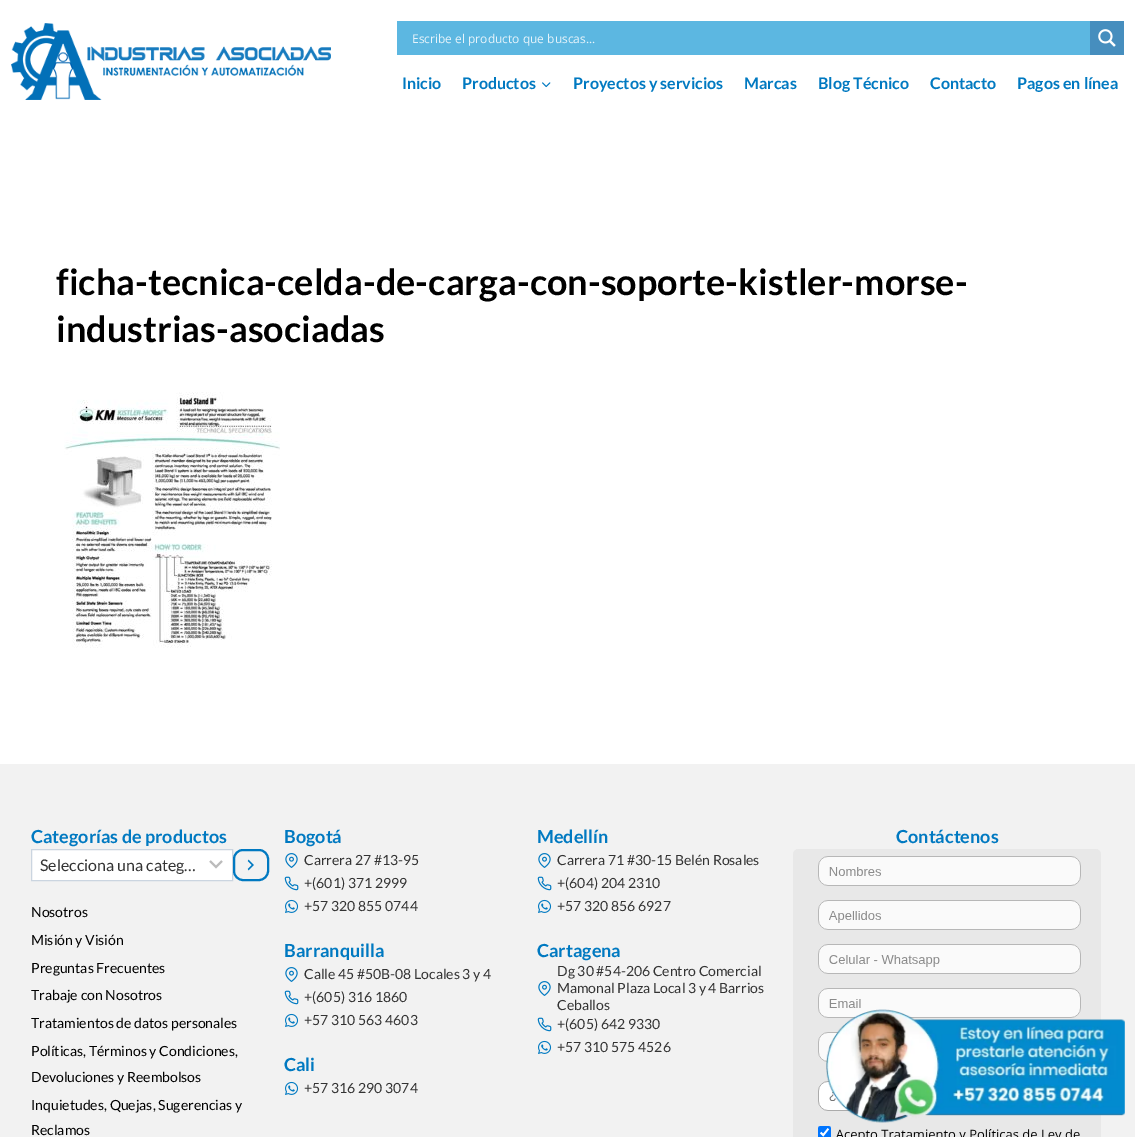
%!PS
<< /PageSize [1135 1137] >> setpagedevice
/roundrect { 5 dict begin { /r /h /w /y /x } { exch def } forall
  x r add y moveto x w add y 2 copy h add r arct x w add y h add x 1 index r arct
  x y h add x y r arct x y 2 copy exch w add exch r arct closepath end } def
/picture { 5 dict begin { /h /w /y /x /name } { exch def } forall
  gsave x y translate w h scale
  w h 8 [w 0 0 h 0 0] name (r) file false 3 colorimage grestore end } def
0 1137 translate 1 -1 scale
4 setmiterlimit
1 setgray
0 0 1135 1137 rectfill
(img1.rgb) 11 23 320 77 picture
0.361 0.718 0.882 setrgbcolor
397 21 693 34 rectfill
/OpenSans-Regular [12 0 0 -12 0 0] selectfont
0.906 0.957 0.984 setrgbcolor
412 43 moveto (Escribe el producto que buscas...) show
0.275 0.557 0.745 setrgbcolor
1090 21 34 34 rectfill
(img2.rgb) 1098 29 18 18 picture
/Lato-Bold [16 0 0 -16 0 0] selectfont
0 0.475 0.757 setrgbcolor
402 89 moveto (Inicio) show
462 89 moveto (Productos) show
(img3.rgb) 542 82 9 6 picture
573 89 moveto (Proyectos y servicios) show
744 89 moveto (Marcas) show
818 89 moveto (Blog Técnico) show
930 89 moveto (Contacto) show
1017 89 moveto (Pagos en línea) show
/Lato-Bold [36 0 0 -36 0 0] selectfont
0 setgray
56 295 moveto (ficha-tecnica-celda-de-carga-con-soporte-kistler-morse-) show
56 342 moveto (industrias-asociadas) show
(img4.rgb) 64 392 216 256 picture
0.949 setgray
0 764 1135 373 rectfill
/Lato-Bold [18 0 0 -18 0 0] selectfont
0 0.475 0.757 setrgbcolor
31 843 moveto (Categorías de productos) show
1 setgray
32 850 200 30 rectfill
0.733 setgray
2 setlinewidth
newpath 210 861 moveto 216 867 lineto 222 861 lineto stroke
0.796 0.835 0.878 setrgbcolor
1 setlinewidth
31.5 849.5 201 31 rectstroke
/Lato-Regular [16 0 0 -16 0 0] selectfont
0.2 setgray
40 871 moveto (Selecciona una categ…) show
0 0.475 0.757 setrgbcolor
2 setlinewidth
234 850 34 30 9 roundrect stroke
(img5.rgb) 247 859 7 12 picture
/Lato-Regular [14 0 0 -14 0 0] selectfont
0 setgray
31 917 moveto (Nosotros) show
31 945 moveto (Misión y Visión) show
31 973 moveto (Preguntas Frecuentes) show
31 1000 moveto (Trabaje con Nosotros) show
31 1028 moveto (Tratamientos de datos personales) show
31 1056 moveto (Políticas, Términos y Condiciones,) show
31 1082 moveto (Devoluciones y Reembolsos) show
31 1110 moveto (Inquietudes, Quejas, Sugerencias y) show
31 1135 moveto (Reclamos) show
/Lato-Bold [18 0 0 -18 0 0] selectfont
0 0.475 0.757 setrgbcolor
284 843 moveto (Bogotá) show
(img6.rgb) 285 853 13 15 picture
/Lato-Regular [14 0 0 -14 0 0] selectfont
0.2 setgray
304 865 moveto (Carrera 27 #13-95) show
(img7.rgb) 284 876 15 15 picture
304 888 moveto (+\(601\) 371 2999) show
(img8.rgb) 285 899 14 14 picture
304 911 moveto (+57 320 855 0744) show
/Lato-Bold [18 0 0 -18 0 0] selectfont
0 0.475 0.757 setrgbcolor
284 957 moveto (Barranquilla) show
(img6.rgb) 285 967 13 15 picture
/Lato-Regular [14 0 0 -14 0 0] selectfont
0.2 setgray
304 979 moveto (Calle 45 #50B-08 Locales 3 y 4) show
(img7.rgb) 284 990 15 15 picture
304 1002 moveto (+\(605\) 316 1860) show
(img8.rgb) 285 1013 14 14 picture
304 1025 moveto (+57 310 563 4603) show
/Lato-Bold [18 0 0 -18 0 0] selectfont
0 0.475 0.757 setrgbcolor
284 1071 moveto (Cali) show
(img8.rgb) 285 1081 14 14 picture
/Lato-Regular [14 0 0 -14 0 0] selectfont
0.2 setgray
304 1093 moveto (+57 316 290 3074) show
/Lato-Bold [18 0 0 -18 0 0] selectfont
0 0.475 0.757 setrgbcolor
537 843 moveto (Medellín) show
(img6.rgb) 538 853 13 15 picture
/Lato-Regular [14 0 0 -14 0 0] selectfont
0.2 setgray
557 865 moveto (Carrera 71 #30-15 Belén Rosales) show
(img7.rgb) 537 876 15 15 picture
557 888 moveto (+\(604\) 204 2310) show
(img8.rgb) 538 899 14 14 picture
557 911 moveto (+57 320 856 6927) show
/Lato-Bold [18 0 0 -18 0 0] selectfont
0 0.475 0.757 setrgbcolor
537 957 moveto (Cartagena) show
(img6.rgb) 538 981 13 15 picture
/Lato-Regular [14 0 0 -14 0 0] selectfont
0.2 setgray
557 976 moveto (Dg 30 #54-206 Centro Comercial) show
557 993 moveto (Mamonal Plaza Local 3 y 4 Barrios) show
557 1010 moveto (Ceballos) show
(img7.rgb) 537 1017 15 15 picture
557 1029 moveto (+\(605\) 642 9330) show
(img8.rgb) 538 1040 14 14 picture
557 1052 moveto (+57 310 575 4526) show
/Lato-Bold [18 0 0 -18 0 0] selectfont
0 0.475 0.757 setrgbcolor
896 843 moveto (Contáctenos) show
(img9.rgb) 793 849 308 288 picture
(img10.rgb) 826 1009 299 114 picture
showpage
